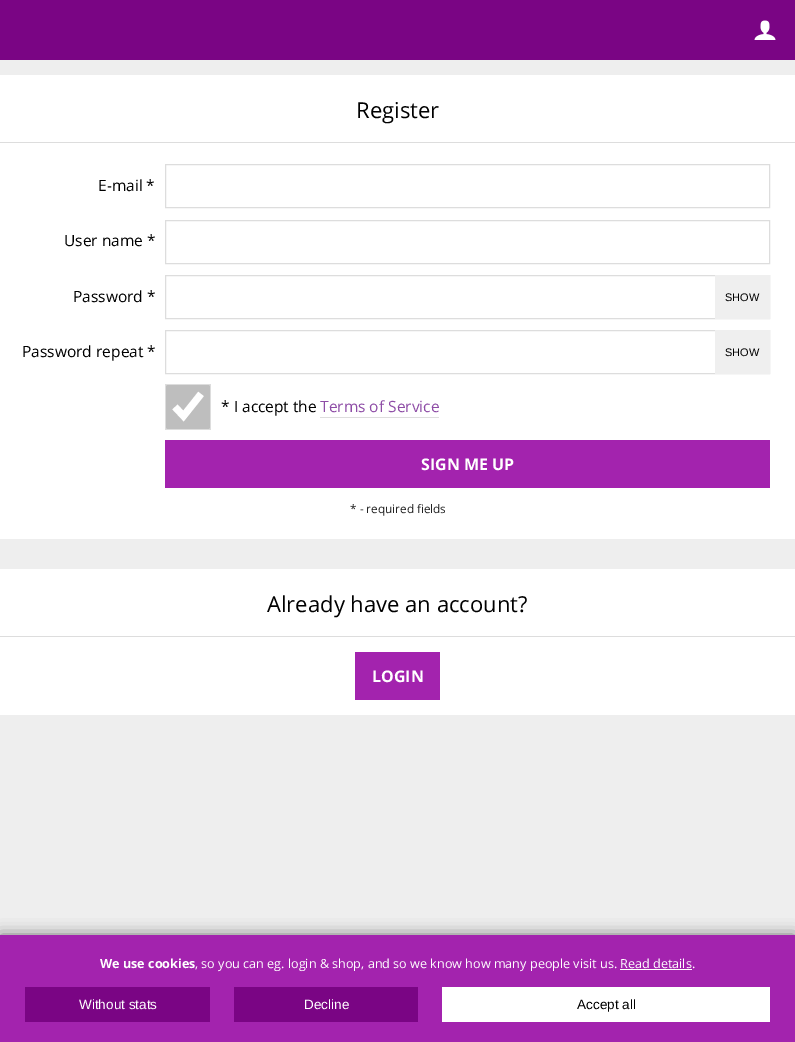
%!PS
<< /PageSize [795 1042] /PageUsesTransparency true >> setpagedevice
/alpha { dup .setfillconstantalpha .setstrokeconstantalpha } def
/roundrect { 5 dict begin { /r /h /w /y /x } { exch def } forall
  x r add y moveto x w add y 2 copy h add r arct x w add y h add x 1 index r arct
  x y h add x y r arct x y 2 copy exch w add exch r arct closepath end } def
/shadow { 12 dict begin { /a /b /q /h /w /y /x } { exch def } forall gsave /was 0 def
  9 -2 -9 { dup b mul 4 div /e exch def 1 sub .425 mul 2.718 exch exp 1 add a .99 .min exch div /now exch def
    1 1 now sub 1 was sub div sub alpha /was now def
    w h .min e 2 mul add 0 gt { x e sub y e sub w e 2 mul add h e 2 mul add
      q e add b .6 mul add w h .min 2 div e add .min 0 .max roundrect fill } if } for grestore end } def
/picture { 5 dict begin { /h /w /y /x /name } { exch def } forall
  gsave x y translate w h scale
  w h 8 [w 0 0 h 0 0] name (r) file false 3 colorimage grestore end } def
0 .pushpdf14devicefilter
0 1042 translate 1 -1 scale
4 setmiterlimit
0.933 setgray
0 0 795 1042 rectfill
0.478 0.02 0.518 setrgbcolor
0 0 795 60 rectfill
(img1.rgb) 754 20 22 20 picture
1 setgray
0 75 795 464 rectfill
0.867 setgray
0 142 795 1 rectfill
/OpenSans-Regular [22 0 0 -22 0 0] selectfont
0 setgray
356 118 moveto (Register) show
/OpenSans-Regular [15.5 0 0 -15.5 0 0] selectfont
98 191 moveto (E-mail *) show
0.867 setgray
165.5 164.5 604 43 rectstroke
0 setgray
64 246 moveto (User name *) show
0.867 setgray
165.5 220.5 604 43 rectstroke
0 setgray
73 302 moveto (Password *) show
0.867 setgray
165.5 275.5 604 43 rectstroke
0.937 setgray
715 275 55 44 rectfill
/LiberationSans-Regular [11 0 0 -11 0 0] selectfont
0 setgray
725 301 moveto (SHOW) show
/OpenSans-Regular [15.5 0 0 -15.5 0 0] selectfont
22 357 moveto (Password repeat *) show
0.867 setgray
165.5 330.5 604 43 rectstroke
0.937 setgray
715 330 55 44 rectfill
/LiberationSans-Regular [11 0 0 -11 0 0] selectfont
0 setgray
725 356 moveto (SHOW) show
0.867 setgray
165 384 46 46 rectfill
0.745 setgray
166 385 44 44 2 roundrect fill
1 setgray
7 setlinewidth
newpath 175 407 moveto 183.5 416 lineto 201 394 lineto stroke
/OpenSans-Regular [15.5 0 0 -15.5 0 0] selectfont
0 setgray
221 412 moveto (* I accept the) show
0.557 0.302 0.651 setrgbcolor
320 412 moveto (Terms of Service) show
0.867 setgray
320 417 119 1 rectfill
0.639 0.137 0.682 setrgbcolor
165 440 605 48 rectfill
/OpenSans-Bold [16 0 0 -16 0 0] selectfont
1 setgray
421 470 moveto (SIGN ME UP) show
/OpenSans-Regular [11.75 0 0 -11.75 0 0] selectfont
0.133 setgray
350 513 moveto (* - required fields) show
1 setgray
0 569 795 146 rectfill
0.867 setgray
0 636 795 1 rectfill
/OpenSans-Regular [22 0 0 -22 0 0] selectfont
0 setgray
267 612 moveto (Already have an account?) show
0.639 0.137 0.682 setrgbcolor
355 652 85 48 rectfill
/OpenSans-Bold [16 0 0 -16 0 0] selectfont
1 setgray
372 682 moveto (LOGIN) show
0 setgray
0 935 795 107 0 7.5 0.5 shadow
0.639 0.137 0.682 setrgbcolor
0 935 795 107 rectfill
/OpenSans-Bold [12.6 0 0 -12.6 0 0] selectfont
1 setgray
100 968 moveto (We use cookies) show
/OpenSans-Regular [12.6 0 0 -12.6 0 0] selectfont
195 968 moveto (, so you can eg. login & shop, and so we know how many people visit us. Read details.) show
620 969 72 1 rectfill
0.478 0.02 0.518 setrgbcolor
25 987 185 35 rectfill
/LiberationSans-Regular [13.5 0 0 -13.5 0 0] selectfont
1 setgray
79 1009 moveto (Without stats) show
0.478 0.02 0.518 setrgbcolor
234 987 184 35 rectfill
1 setgray
304 1009 moveto (Decline) show
442 987 328 35 rectfill
0 setgray
577 1009 moveto (Accept all) show
.poppdf14devicefilter showpage
